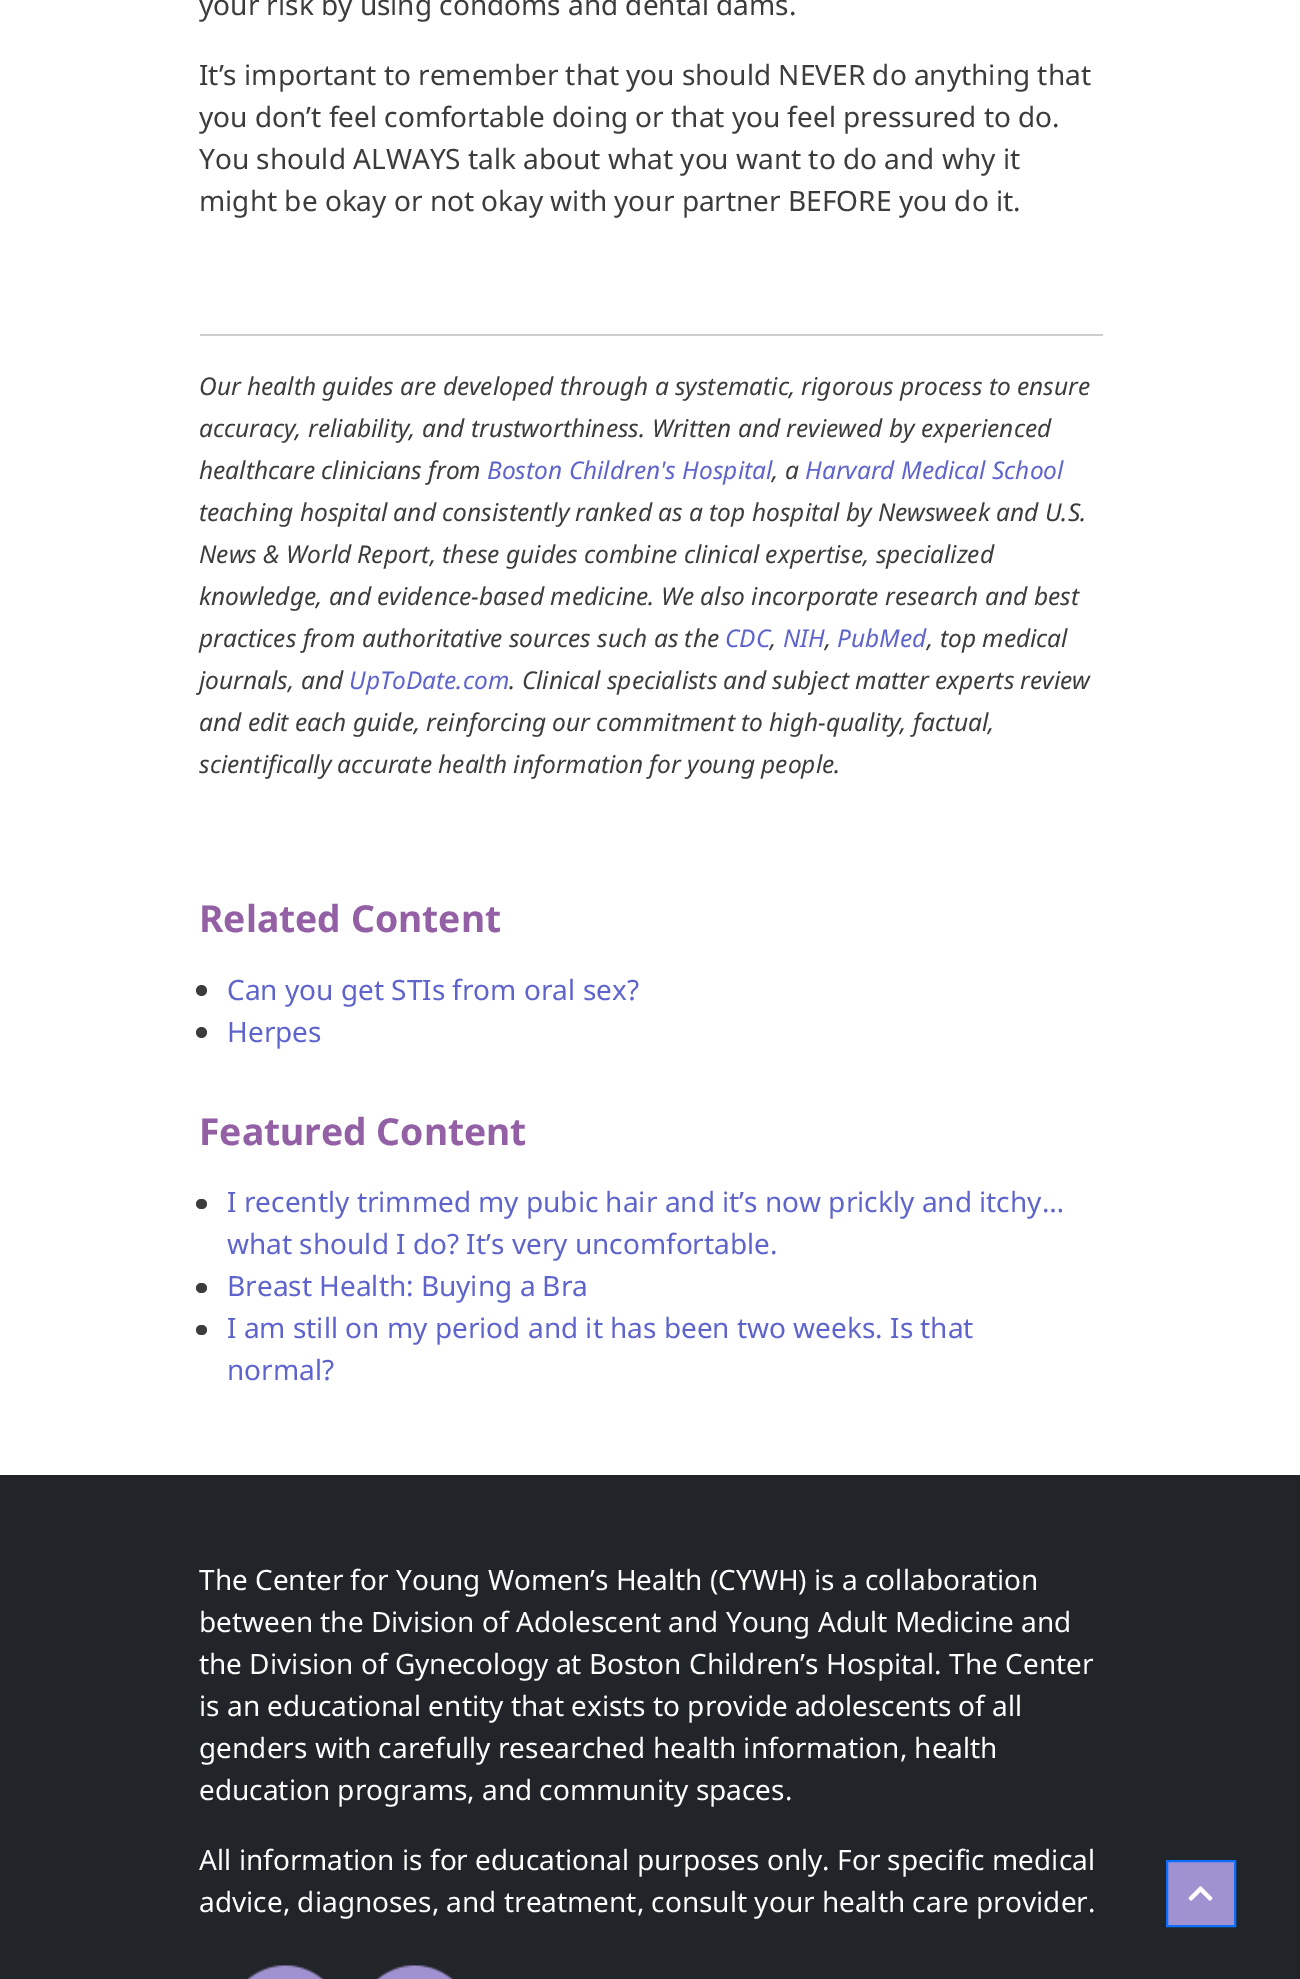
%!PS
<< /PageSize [1300 1979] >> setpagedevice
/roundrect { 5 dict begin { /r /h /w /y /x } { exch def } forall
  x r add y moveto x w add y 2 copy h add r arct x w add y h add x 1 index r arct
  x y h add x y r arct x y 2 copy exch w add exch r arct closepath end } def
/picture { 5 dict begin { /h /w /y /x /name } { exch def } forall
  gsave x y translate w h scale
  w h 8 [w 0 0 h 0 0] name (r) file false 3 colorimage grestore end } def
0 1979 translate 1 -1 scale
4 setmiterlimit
1 setgray
0 0 1300 1979 rectfill
/NotoSans-Regular [28 0 0 -28 0 0] selectfont
0.235 setgray
199 15 moveto (your risk by using condoms and dental dams.) show
199 85 moveto (It’s important to remember that you should NEVER do anything that) show
199 127 moveto (you don’t feel comfortable doing or that you feel pressured to do.) show
199 169 moveto (You should ALWAYS talk about what you want to do and why it) show
199 211 moveto (might be okay or not okay with your partner BEFORE you do it.) show
0.808 setgray
200 334 903 2 rectfill
/NotoSans-Italic [24.5 0 0 -24.5 0 0] selectfont
0.235 setgray
199 395 moveto (Our health guides are developed through a systematic, rigorous process to ensure) show
199 437 moveto (accuracy, reliability, and trustworthiness. Written and reviewed by experienced) show
199 479 moveto (healthcare clinicians from) show
0.373 0.392 0.8 setrgbcolor
487 479 moveto (Boston Children's Hospital) show
0.235 setgray
772 479 moveto (, a) show
0.373 0.392 0.8 setrgbcolor
805 479 moveto (Harvard Medical School) show
0.235 setgray
199 521 moveto (teaching hospital and consistently ranked as a top hospital by Newsweek and U.S.) show
199 563 moveto (News & World Report, these guides combine clinical expertise, specialized) show
199 605 moveto (knowledge, and evidence-based medicine. We also incorporate research and best) show
199 647 moveto (practices from authoritative sources such as the) show
0.373 0.392 0.8 setrgbcolor
725 647 moveto (CDC) show
783 647 moveto (NIH) show
837 647 moveto (PubMed) show
0.235 setgray
927 647 moveto (, top medical) show
770 647 moveto (,) show
825 647 moveto (,) show
199 689 moveto (journals, and) show
0.373 0.392 0.8 setrgbcolor
349 689 moveto (UpToDate.com) show
0.235 setgray
509 689 moveto (. Clinical specialists and subject matter experts review) show
199 731 moveto (and edit each guide, reinforcing our commitment to high-quality, factual,) show
199 773 moveto (scientifically accurate health information for young people.) show
/NotoSans-Bold [37.25 0 0 -37.25 0 0] selectfont
0.576 0.373 0.647 setrgbcolor
199 932 moveto (Related Content) show
0.235 setgray
newpath 201.5 990.5 5.5 0 360 arc closepath fill
/NotoSans-Regular [28 0 0 -28 0 0] selectfont
0.373 0.392 0.8 setrgbcolor
227 1000 moveto (Can you get STIs from oral sex?) show
0.235 setgray
newpath 201.5 1032.5 5.5 0 360 arc closepath fill
0.373 0.392 0.8 setrgbcolor
227 1042 moveto (Herpes) show
/NotoSans-Bold [37.25 0 0 -37.25 0 0] selectfont
0.576 0.373 0.647 setrgbcolor
199 1145 moveto (Featured Content) show
0.235 setgray
196 1199 11 10 5 roundrect fill
/NotoSans-Regular [28 0 0 -28 0 0] selectfont
0.373 0.392 0.8 setrgbcolor
227 1212 moveto (I recently trimmed my pubic hair and it’s now prickly and itchy…) show
227 1254 moveto (what should I do? It’s very uncomfortable.) show
0.235 setgray
196 1283 11 10 5 roundrect fill
0.373 0.392 0.8 setrgbcolor
227 1296 moveto (Breast Health: Buying a Bra) show
0.235 setgray
196 1325 11 10 5 roundrect fill
0.373 0.392 0.8 setrgbcolor
227 1338 moveto (I am still on my period and it has been two weeks. Is that) show
227 1380 moveto (normal?) show
0.129 0.145 0.161 setrgbcolor
0 1475 1300 504 rectfill
1 setgray
199 1590 moveto (The Center for Young Women’s Health \(CYWH\) is a collaboration) show
199 1632 moveto (between the Division of Adolescent and Young Adult Medicine and) show
199 1674 moveto (the Division of Gynecology at Boston Children’s Hospital. The Center) show
199 1716 moveto (is an educational entity that exists to provide adolescents of all) show
199 1758 moveto (genders with carefully researched health information, health) show
199 1800 moveto (education programs, and community spaces.) show
199 1870 moveto (All information is for educational purposes only. For specific medical) show
199 1912 moveto (advice, diagnoses, and treatment, consult your health care provider.) show
(img1.rgb) 246 1965 78 14 picture
(img2.rgb) 376 1965 78 14 picture
0.627 0.569 0.816 setrgbcolor
newpath 1167 1861 moveto 1235 1861 lineto 1235 1926 lineto 1167 1926 lineto closepath gsave fill grestore
0.051 0.431 0.992 setrgbcolor
2 setlinewidth
stroke
(img3.rgb) 1188 1886 25 15 picture
showpage
